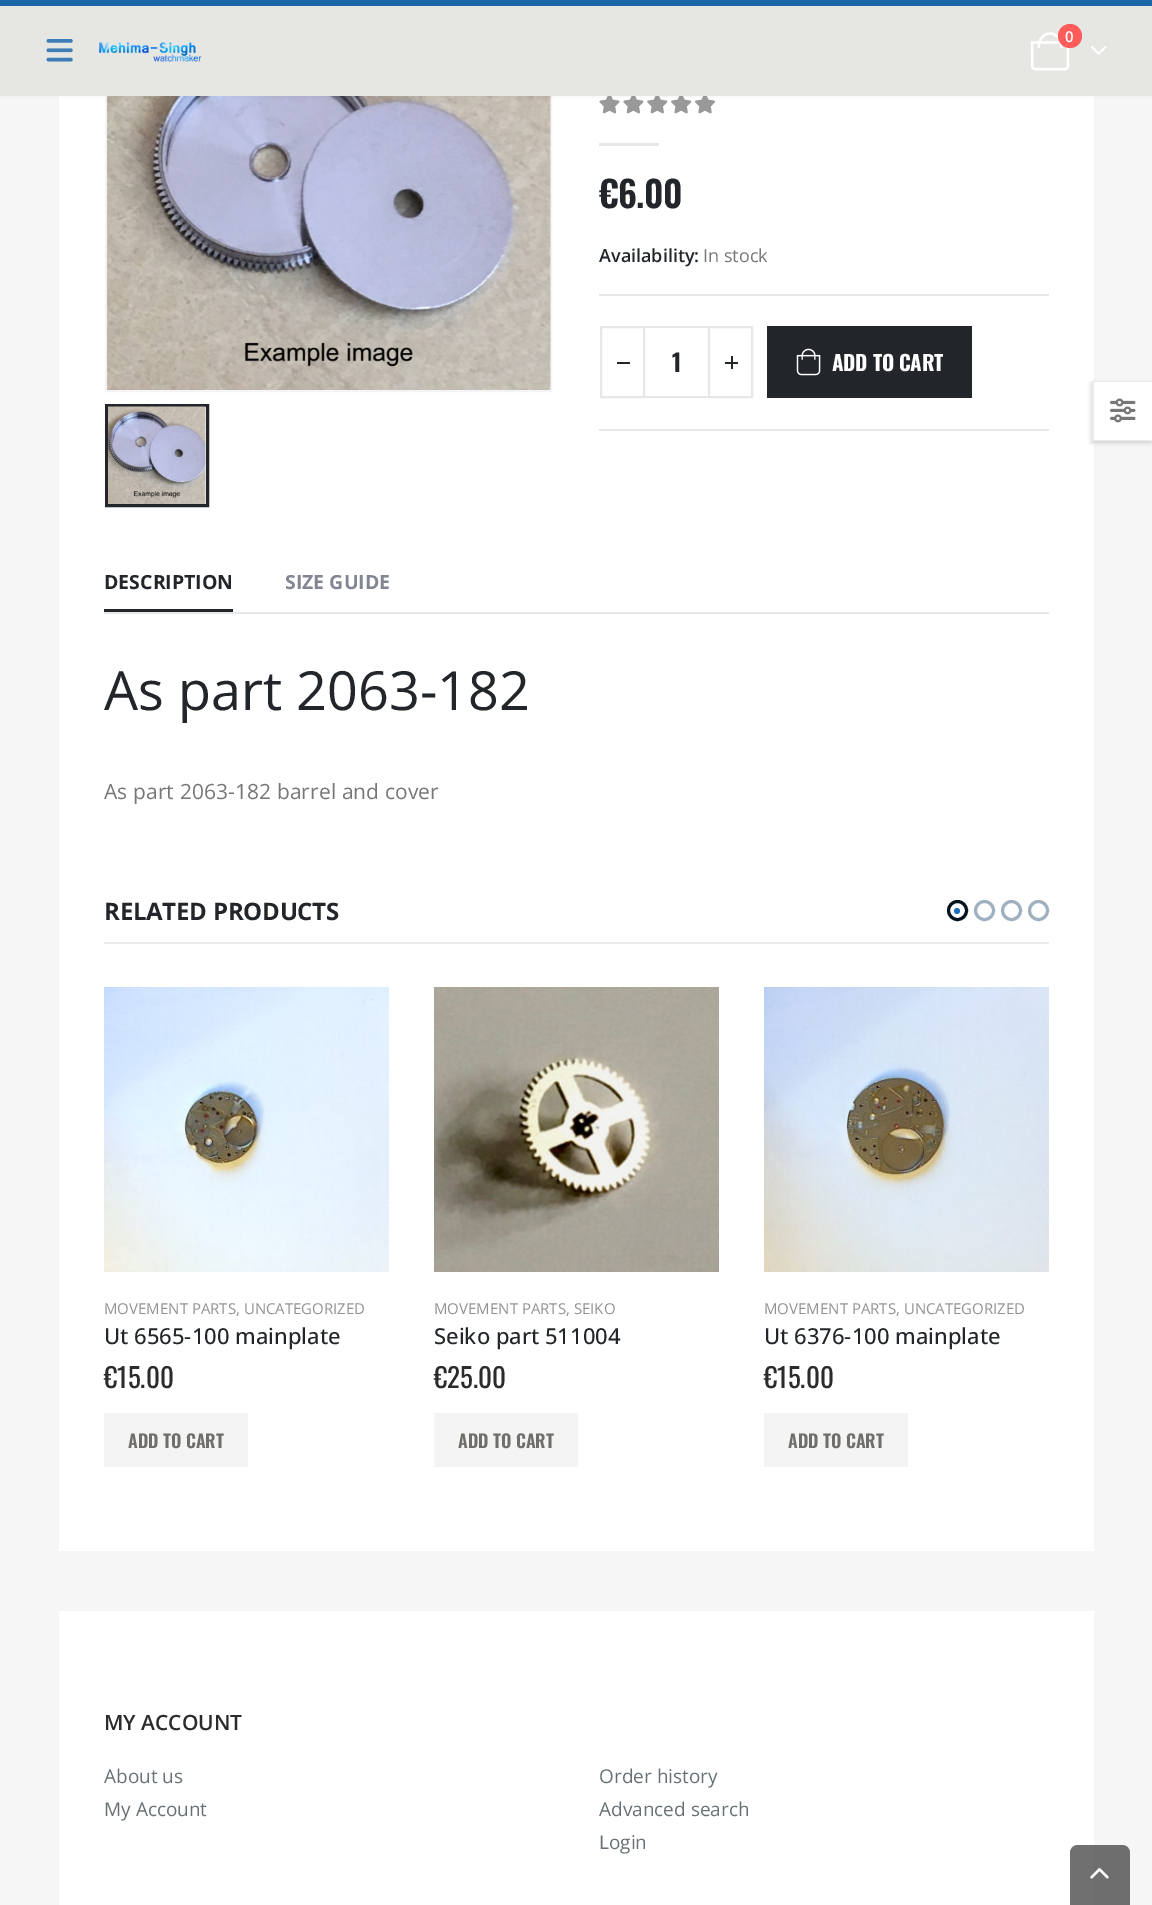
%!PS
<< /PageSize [1152 1905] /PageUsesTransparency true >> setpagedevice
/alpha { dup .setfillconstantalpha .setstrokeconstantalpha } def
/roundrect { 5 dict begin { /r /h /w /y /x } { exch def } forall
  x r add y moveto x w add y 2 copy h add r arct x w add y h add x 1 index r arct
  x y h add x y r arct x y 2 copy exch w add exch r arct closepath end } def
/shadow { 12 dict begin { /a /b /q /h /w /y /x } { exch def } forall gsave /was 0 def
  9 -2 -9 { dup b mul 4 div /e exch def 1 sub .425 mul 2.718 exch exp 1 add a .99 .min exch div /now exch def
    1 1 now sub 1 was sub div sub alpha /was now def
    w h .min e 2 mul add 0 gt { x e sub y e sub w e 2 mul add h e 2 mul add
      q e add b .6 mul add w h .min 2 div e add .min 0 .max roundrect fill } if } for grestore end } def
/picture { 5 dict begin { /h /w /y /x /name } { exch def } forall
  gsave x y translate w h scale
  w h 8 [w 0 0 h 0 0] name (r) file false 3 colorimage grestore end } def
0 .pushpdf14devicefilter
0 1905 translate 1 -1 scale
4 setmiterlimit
0.965 setgray
0 0 1152 1905 rectfill
1 setgray
59 96 1035 1455 rectfill
0.957 setgray
2 setlinewidth
106 33 445 358 rectstroke
(img5.rgb) 107 96 444 294 picture
(img7.rgb) 599 96 116 18 picture
0 setgray
0 0 1152 96 0 2 0.06 shadow
0.902 0.902 0.89 setrgbcolor
0 6 1152 90 rectfill
0.106 0.396 0.663 setrgbcolor
0 0 1152 6 rectfill
(img1.rgb) 1030 32 40 39 picture
1 0.357 0.357 setrgbcolor
newpath 1070 36 12 0 360 arc closepath fill
/OpenSans-SemiBold [15 0 0 -15 0 0] selectfont
1 setgray
1065 42 moveto (0) show
(img2.rgb) 1091 46 16 9 picture
(img3.rgb) 46 39 27 23 picture
(img4.rgb) 99 42 103 20 picture
0.133 0.145 0.161 setrgbcolor
3 setlinewidth
106.5 405.5 101 100 rectstroke
(img6.rgb) 108 406 98 98 picture
0.906 setgray
599 143 60 3 rectfill
/Oswald-SemiBold [36 0 0 -36 0 0] selectfont
0.133 0.145 0.161 setrgbcolor
599 208 moveto -0.75 0 (€6.00) ashow
/OpenSans-SemiBold [18 0 0 -18 0 0] selectfont
599 262 moveto (Availability:) show
/OpenSans-Regular [18 0 0 -18 0 0] selectfont
0.467 setgray
703 262 moveto (In stock) show
0.906 setgray
599 294 450 2 rectfill
599 429 450 2 rectfill
644 326 66 2 rectfill
644 396 66 2 rectfill
2 setlinewidth
601 327 43 70 rectstroke
0.133 0.145 0.161 setrgbcolor
617 362 13 2 rectfill
/Oswald-Bold [24 0 0 -24 0 0] selectfont
672 372 moveto (1) show
0.906 setgray
709 327 43 70 rectstroke
0.133 0.145 0.161 setrgbcolor
725 362 13 2 rectfill
731 356 2 13 rectfill
767 326 205 72 rectfill
(img8.rgb) 796 348 25 28 picture
/Oswald-Bold [21 0 0 -21 0 0] selectfont
1 setgray
832 371 moveto -0.25 0 (ADD TO CART) ashow
0.133 0.145 0.161 setrgbcolor
104 609 129 3 rectfill
/OpenSans-Bold [19.5 0 0 -19.5 0 0] selectfont
104 589 moveto (DESCRIPTION) show
0.506 0.525 0.573 setrgbcolor
285 589 moveto (SIZE GUIDE) show
0.906 setgray
104 612 945 2 rectfill
/OpenSans-Regular [54 0 0 -54 0 0] selectfont
0.133 0.145 0.161 setrgbcolor
104 710 moveto (As part 2063-182) show
/OpenSans-Regular [21 0 0 -21 0 0] selectfont
0.467 setgray
104 799 moveto 0.1 0 (As part 2063-182 barrel and cover) ashow
0 setgray
1091 383 60 60 0 2 0.15 shadow
1 setgray
1092 381 60 60 rectfill
0.922 setgray
newpath 1092 381 moveto 1152 381 lineto 1152 382 lineto 1094 382 lineto closepath 1152 441 moveto 1092 441 lineto 1094 440 lineto 1152 440 lineto closepath fill
0.08 alpha
0 setgray
newpath 1092 441 moveto 1092 381 lineto 1094 382 lineto 1094 440 lineto closepath fill
1 alpha
(img9.rgb) 1110 398 26 25 picture
0.922 setgray
104 942 945 2 rectfill
/OpenSans-Bold [24 0 0 -24 0 0] selectfont
0.133 0.145 0.161 setrgbcolor
104 920 moveto -0.25 0 (RELATED PRODUCTS) ashow
0.02 0.075 0.11 setrgbcolor
3 setlinewidth
newpath 957.5 910.5 9 0 360 arc closepath stroke
0.114 0.439 0.729 setrgbcolor
newpath 957 911 3 0 360 arc closepath fill
0.624 0.694 0.753 setrgbcolor
newpath 984.5 910.5 9 0 360 arc closepath stroke
newpath 1011.5 910.5 9 0 360 arc closepath stroke
newpath 1038.5 910.5 9 0 360 arc closepath stroke
(img10.rgb) 104 987 285 285 picture
/OpenSans-Regular [15 0 0 -15 0 0] selectfont
0.573 setgray
104 1314 moveto (MOVEMENT PARTS, UNCATEGORIZED) show
/OpenSans-Medium [22 0 0 -22 0 0] selectfont
0.133 0.145 0.161 setrgbcolor
104 1344 moveto (Ut 6565-100 mainplate) show
/Oswald-Regular [27 0 0 -27 0 0] selectfont
0.169 0.169 0.176 setrgbcolor
104 1388 moveto (€15.00) show
0.957 setgray
104 1413 144 54 rectfill
/Oswald-SemiBold [18 0 0 -18 0 0] selectfont
0.435 0.431 0.42 setrgbcolor
128 1448 moveto (ADD TO CART) show
(img11.rgb) 434 987 285 285 picture
/OpenSans-Regular [15 0 0 -15 0 0] selectfont
0.573 setgray
434 1314 moveto (MOVEMENT PARTS, SEIKO) show
/OpenSans-Medium [22 0 0 -22 0 0] selectfont
0.133 0.145 0.161 setrgbcolor
434 1344 moveto (Seiko part 511004) show
/Oswald-Regular [27 0 0 -27 0 0] selectfont
0.169 0.169 0.176 setrgbcolor
434 1388 moveto (€25.00) show
0.957 setgray
434 1413 144 54 rectfill
/Oswald-SemiBold [18 0 0 -18 0 0] selectfont
0.435 0.431 0.42 setrgbcolor
458 1448 moveto (ADD TO CART) show
(img12.rgb) 764 987 285 285 picture
/OpenSans-Regular [15 0 0 -15 0 0] selectfont
0.573 setgray
764 1314 moveto (MOVEMENT PARTS, UNCATEGORIZED) show
/OpenSans-Medium [22 0 0 -22 0 0] selectfont
0.133 0.145 0.161 setrgbcolor
764 1344 moveto (Ut 6376-100 mainplate) show
/Oswald-Regular [27 0 0 -27 0 0] selectfont
0.169 0.169 0.176 setrgbcolor
764 1388 moveto (€15.00) show
0.957 setgray
764 1413 144 54 rectfill
/Oswald-SemiBold [18 0 0 -18 0 0] selectfont
0.435 0.431 0.42 setrgbcolor
788 1448 moveto (ADD TO CART) show
1 setgray
59 1611 1035 294 rectfill
/OpenSans-SemiBold [21 0 0 -21 0 0] selectfont
0.169 0.169 0.176 setrgbcolor
104 1730 moveto (MY ACCOUNT) show
/OpenSans-Regular [19 0 0 -19 0 0] selectfont
0.408 0.443 0.463 setrgbcolor
104 1783 moveto (About us) show
104 1816 moveto (My Account) show
599 1783 moveto (Order history) show
599 1816 moveto (Advanced search) show
599 1849 moveto (Login) show
0.75 alpha
0.251 setgray
newpath 1078 1845 moveto 1122 1845 lineto 1126.5 1845 1130 1848.5 1130 1853 curveto 1130 1905 lineto 1070 1905 lineto 1070 1853 lineto 1070 1848.5 1073.5 1845 1078 1845 curveto closepath fill
1 alpha
(img13.rgb) 1090 1868 19 11 picture
.poppdf14devicefilter showpage
